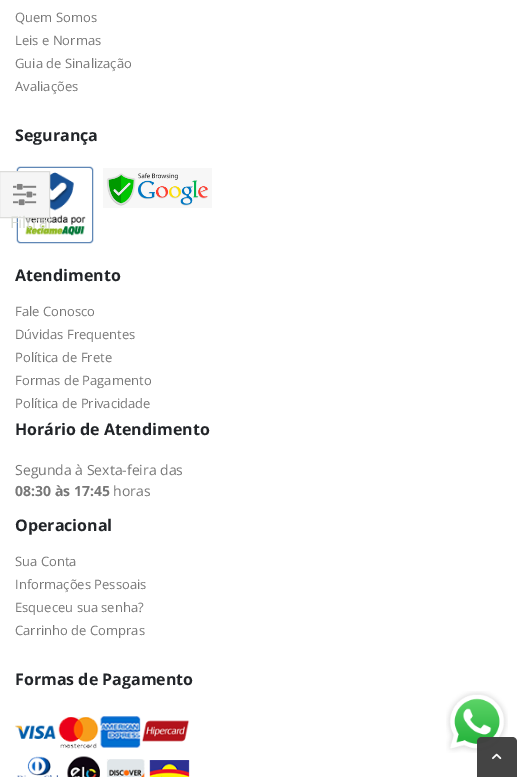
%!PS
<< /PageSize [532 777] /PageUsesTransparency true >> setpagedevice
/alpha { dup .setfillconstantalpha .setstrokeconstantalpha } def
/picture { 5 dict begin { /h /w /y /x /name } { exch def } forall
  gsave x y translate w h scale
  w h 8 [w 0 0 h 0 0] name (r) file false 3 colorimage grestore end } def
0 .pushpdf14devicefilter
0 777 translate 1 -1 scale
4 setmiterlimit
1 setgray
0 0 532 777 rectfill
/OpenSans-Regular [13 0 0 -13 0 0] selectfont
0.467 setgray
15 22 moveto (Quem Somos) show
15 45 moveto (Leis e Normas) show
15 68 moveto (Guia de Sinalização) show
15 91 moveto (Avaliações) show
/OpenSans-Bold [16 0 0 -16 0 0] selectfont
0.133 0.145 0.161 setrgbcolor
15 141 moveto (Segurança) show
(img1.rgb) 16 166 78 78 picture
(img2.rgb) 103 168 109 40 picture
15 281 moveto (Atendimento) show
/OpenSans-Regular [13 0 0 -13 0 0] selectfont
0.467 setgray
15 316 moveto (Fale Conosco) show
15 339 moveto (Dúvidas Frequentes) show
15 362 moveto (Política de Frete) show
15 385 moveto (Formas de Pagamento) show
15 408 moveto (Política de Privacidade) show
/OpenSans-Bold [16 0 0 -16 0 0] selectfont
0.133 0.145 0.161 setrgbcolor
15 435 moveto (Horário de Atendimento) show
/OpenSans-Regular [14 0 0 -14 0 0] selectfont
0.467 setgray
15 475 moveto (Segunda à Sexta-feira das) show
/OpenSans-Bold [14 0 0 -14 0 0] selectfont
15 496 moveto (08:30 às 17:45) show
/OpenSans-Regular [14 0 0 -14 0 0] selectfont
113 496 moveto (horas) show
/OpenSans-Bold [16 0 0 -16 0 0] selectfont
0.133 0.145 0.161 setrgbcolor
15 531 moveto (Operacional) show
/OpenSans-Regular [13 0 0 -13 0 0] selectfont
0.467 setgray
15 566 moveto (Sua Conta) show
15 589 moveto (Informações Pessoais) show
15 612 moveto (Esqueceu sua senha?) show
15 635 moveto (Carrinho de Compras) show
/OpenSans-Bold [16 0 0 -16 0 0] selectfont
0.133 0.145 0.161 setrgbcolor
15 685 moveto (Formas de Pagamento) show
(img3.rgb) 15 716 175 61 picture
(img6.rgb) 446 691 62 62 picture
0.98 alpha
0.251 setgray
newpath 482 737 moveto 512 737 lineto 515 737 517 739 517 742 curveto 517 777 lineto 477 777 lineto 477 742 lineto 477 739 479 737 482 737 curveto closepath fill
1 alpha
(img4.rgb) 492 753 10 7 picture
0.961 setgray
newpath -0.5 171.5 moveto 49.5 171.5 lineto 49.5 217.5 lineto -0.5 217.5 lineto closepath gsave fill grestore
0.863 0.863 0.855 setrgbcolor
stroke
(img5.rgb) 13 183 24 23 picture
/OpenSans-Regular [16 0 0 -16 0 0] selectfont
0.847 0.859 0.831 setrgbcolor
10 228 moveto (Filtrar) show
.poppdf14devicefilter showpage
